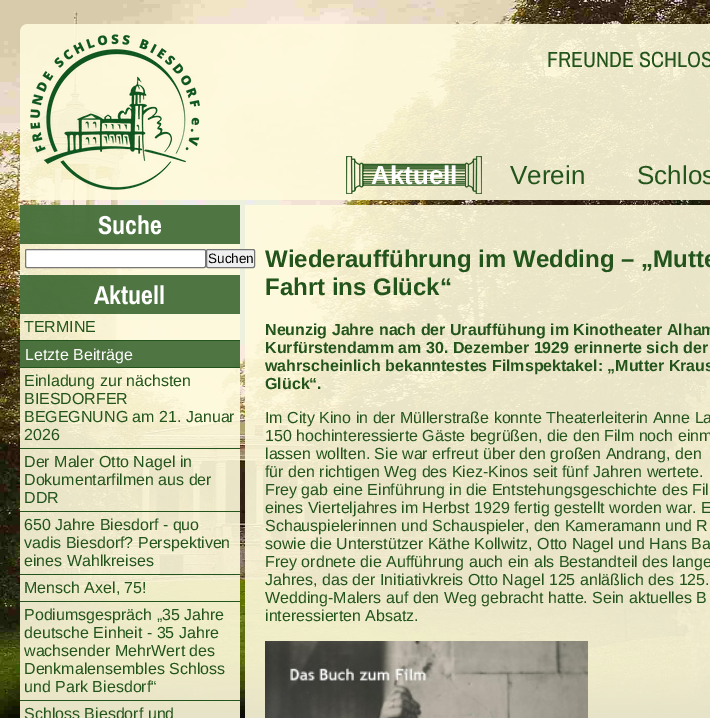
%!PS
<< /PageSize [710 718] /PageUsesTransparency true >> setpagedevice
/alpha { dup .setfillconstantalpha .setstrokeconstantalpha } def
/roundrect { 5 dict begin { /r /h /w /y /x } { exch def } forall
  x r add y moveto x w add y 2 copy h add r arct x w add y h add x 1 index r arct
  x y h add x y r arct x y 2 copy exch w add exch r arct closepath end } def
/picture { 5 dict begin { /h /w /y /x /name } { exch def } forall
  gsave x y translate w h scale
  w h 8 [w 0 0 h 0 0] name (r) file false 3 colorimage grestore end } def
0 .pushpdf14devicefilter
0 718 translate 1 -1 scale
4 setmiterlimit
1 setgray
0 0 710 718 rectfill
(img1.rgb) 0 0 710 718 picture
0.9 alpha
1 0.98 0.863 setrgbcolor
newpath 28 24 moveto 710 24 lineto 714.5 24 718 27.5 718 32 curveto 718 200 lineto 20 200 lineto 20 32 lineto 20 27.5 23.5 24 28 24 curveto closepath fill
1 alpha
(img2.rgb) 30 34 170 156 picture
/ArchivoNarrow-Regular [22 0 0 -22 0 0] selectfont
0.133 0.329 0.106 setrgbcolor
547 67 moveto (FREUNDE SCHLOS) show
(img3.rgb) 363 163 102 23 picture
(img4.rgb) 346 156 18 38 picture
/LiberationSans-Bold [26 0 0 -26 0 0] selectfont
1 setgray
371 184 moveto (Aktuell) show
(img5.rgb) 465 156 17 38 picture
/LiberationSans-Regular [26 0 0 -26 0 0] selectfont
0.133 0.329 0.106 setrgbcolor
510 184 moveto (Verein) show
637 184 moveto (Schlos) show
0.9 alpha
1 0.98 0.863 setrgbcolor
20 205 220 513 rectfill
0.8 alpha
0.133 0.329 0.106 setrgbcolor
20 205 220 39 rectfill
/ArchivoNarrow-Bold [26 0 0 -26 0 0] selectfont
1 alpha
1 setgray
98 234 moveto (Suche) show
25.5 249.5 180 18 1.5 roundrect gsave fill grestore
0.463 setgray
stroke
0.9 alpha
1 0.98 0.863 setrgbcolor
245 205 465 513 rectfill
1 alpha
0.937 setgray
206.5 249.5 48 18 1.5 roundrect gsave fill grestore
0.463 setgray
stroke
/LiberationSans-Regular [13.5 0 0 -13.5 0 0] selectfont
0 setgray
208 263 moveto (Suchen) show
0.8 alpha
0.133 0.329 0.106 setrgbcolor
20 275 220 39 rectfill
/ArchivoNarrow-Bold [26 0 0 -26 0 0] selectfont
1 alpha
1 setgray
94 304 moveto (Aktuell) show
0.133 0.329 0.106 setrgbcolor
20 340 220 1 rectfill
/LiberationSans-Regular [16 0 0 -16 0 0] selectfont
24 332 moveto (TERMINE) show
0.8 alpha
20 341 220 26 rectfill
1 alpha
20 367 220 1 rectfill
1 setgray
25 360 moveto (Letzte Beiträge) show
0.133 0.329 0.106 setrgbcolor
20 448 220 1 rectfill
24 386 moveto (Einladung zur nächsten) show
24 404 moveto (BIESDORFER) show
24 422 moveto (BEGEGNUNG am 21. Januar) show
24 440 moveto (2026) show
20 511 220 1 rectfill
24 467 moveto (Der Maler Otto Nagel in) show
24 485 moveto (Dokumentarfilmen aus der) show
24 503 moveto (DDR) show
20 574 220 1 rectfill
24 530 moveto (650 Jahre Biesdorf - quo) show
24 548 moveto (vadis Biesdorf? Perspektiven) show
24 566 moveto (eines Wahlkreises) show
20 601 220 1 rectfill
24 593 moveto (Mensch Axel, 75!) show
20 700 220 1 rectfill
24 620 moveto (Podiumsgespräch „35 Jahre) show
24 638 moveto (deutsche Einheit - 35 Jahre) show
24 656 moveto (wachsender MehrWert des) show
24 674 moveto (Denkmalensembles Schloss) show
24 692 moveto (und Park Biesdorf“) show
24 719 moveto (Schloss Biesdorf und) show
/LiberationSans-Bold [24 0 0 -24 0 0] selectfont
265 267 moveto (Wiederaufführung im Wedding – „Mutte) show
265 295 moveto (Fahrt ins Glück“) show
/LiberationSans-Bold [16 0 0 -16 0 0] selectfont
265 335 moveto (Neunzig Jahre nach der Urauffühung im Kinotheater Alham) show
265 353 moveto (Kurfürstendamm am 30. Dezember 1929 erinnerte sich der) show
265 371 moveto (wahrscheinlich bekanntestes Filmspektakel: „Mutter Kraus) show
265 389 moveto (Glück“.) show
/LiberationSans-Regular [16 0 0 -16 0 0] selectfont
265 423 moveto (Im City Kino in der Müllerstraße konnte Theaterleiterin Anne La) show
265 441 moveto (150 hochinteressierte Gäste begrüßen, die den Film noch einm) show
265 459 moveto (lassen wollten. Sie war erfreut über den großen Andrang, den) show
265 477 moveto (für den richtigen Weg des Kiez-Kinos seit fünf Jahren wertete.) show
265 495 moveto (Frey gab eine Einführung in die Entstehungsgeschichte des Fil) show
265 513 moveto (eines Vierteljahres im Herbst 1929 fertig gestellt worden war. E) show
265 531 moveto (Schauspielerinnen und Schauspieler, den Kameramann und R) show
265 549 moveto (sowie die Unterstützer Käthe Kollwitz, Otto Nagel und Hans Ba) show
265 567 moveto (Frey ordnete die Aufführung auch ein als Bestandteil des lange) show
265 585 moveto (Jahres, das der Initiativkreis Otto Nagel 125 anläßlich des 125.) show
265 603 moveto (Wedding-Malers auf den Weg gebracht hatte. Sein aktuelles B) show
265 621 moveto (interessierten Absatz.) show
(img6.rgb) 265 641 323 77 picture
.poppdf14devicefilter showpage
